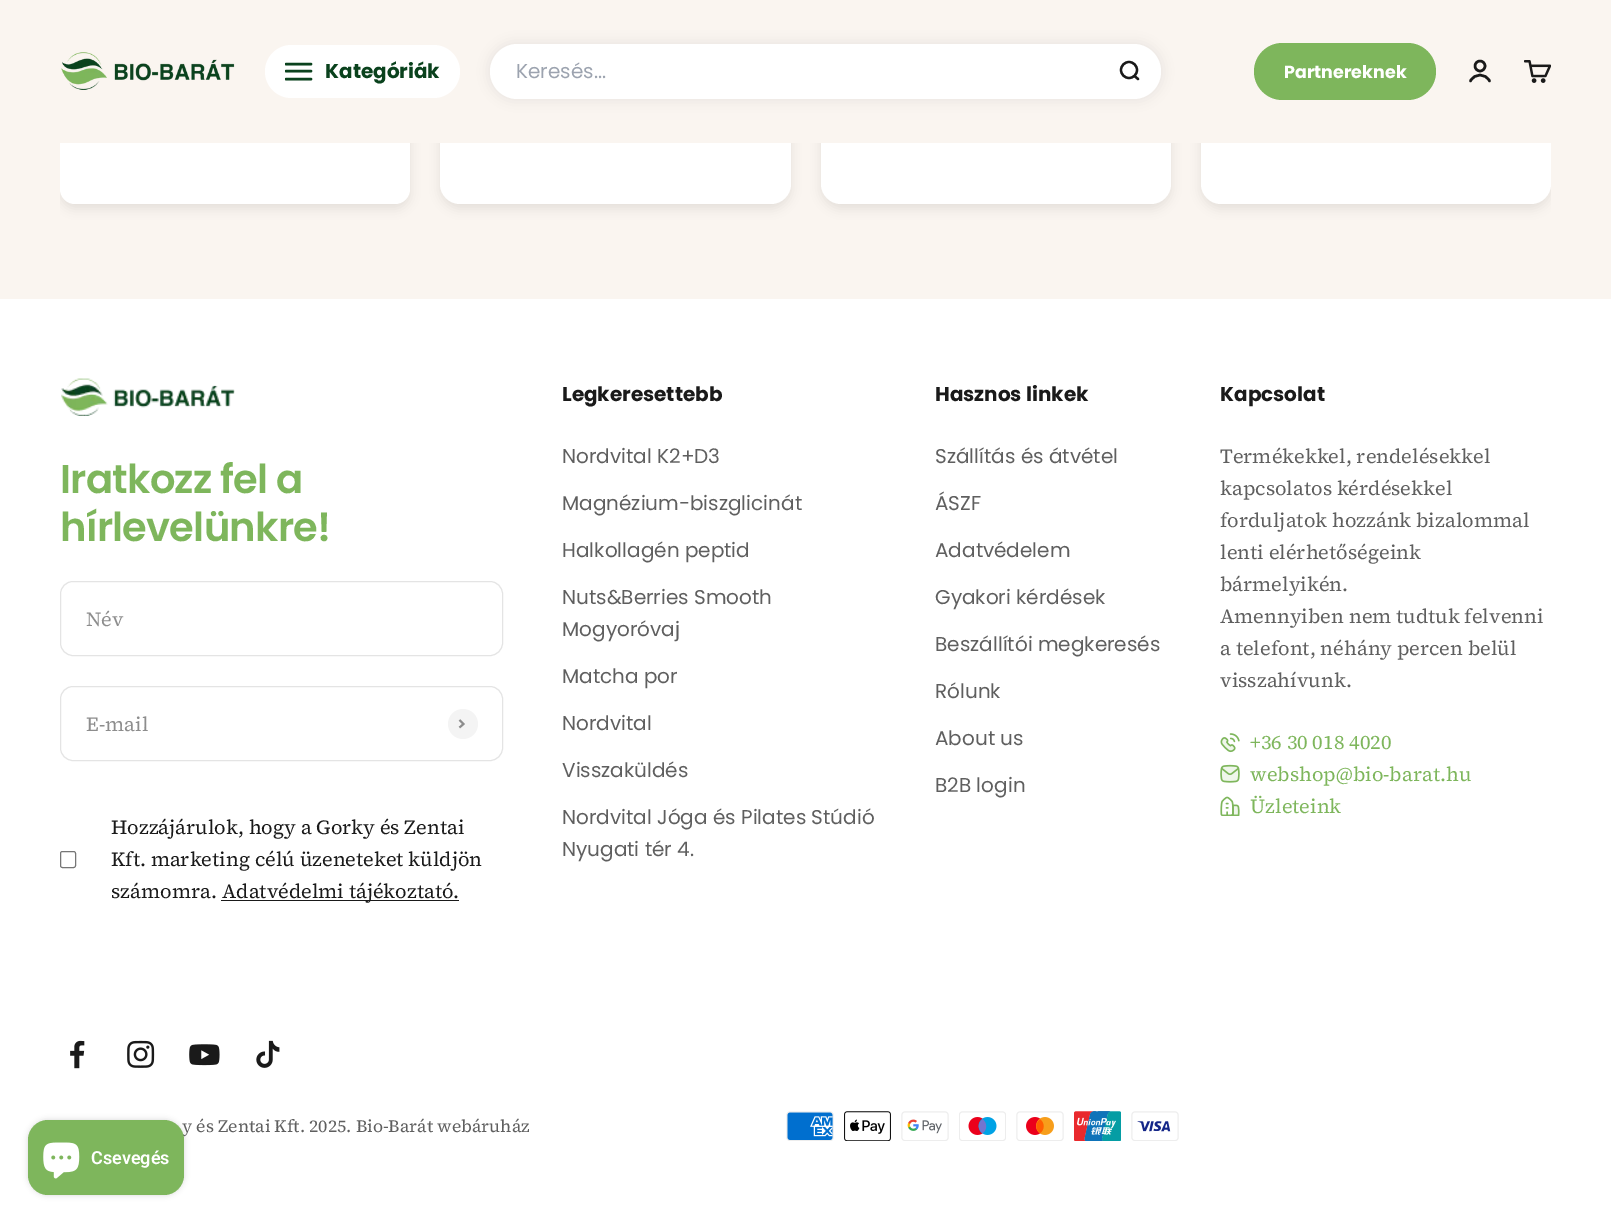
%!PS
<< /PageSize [1611 1221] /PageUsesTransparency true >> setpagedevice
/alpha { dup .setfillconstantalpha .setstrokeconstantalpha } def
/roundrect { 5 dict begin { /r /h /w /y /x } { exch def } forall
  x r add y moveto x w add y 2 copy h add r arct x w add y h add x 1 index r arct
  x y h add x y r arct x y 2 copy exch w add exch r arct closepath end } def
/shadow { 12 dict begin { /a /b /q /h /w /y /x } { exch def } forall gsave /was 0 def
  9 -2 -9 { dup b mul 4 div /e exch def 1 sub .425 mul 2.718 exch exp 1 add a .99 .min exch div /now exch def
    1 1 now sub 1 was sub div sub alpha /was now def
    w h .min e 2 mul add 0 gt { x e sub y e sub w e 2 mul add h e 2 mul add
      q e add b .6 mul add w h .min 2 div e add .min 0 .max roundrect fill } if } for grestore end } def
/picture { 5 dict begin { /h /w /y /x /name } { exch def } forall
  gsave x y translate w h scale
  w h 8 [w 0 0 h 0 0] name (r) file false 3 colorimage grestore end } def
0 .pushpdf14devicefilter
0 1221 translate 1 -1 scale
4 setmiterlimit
0.98 0.961 0.941 setrgbcolor
0 0 1611 1221 rectfill
gsave
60 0 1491 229 rectclip
0 setgray
60 -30 350 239 15 5 0.08 shadow
grestore
1 setgray
60 -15 350 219 15 roundrect fill
0 setgray
440 -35 351 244 20 5 0.08 shadow
1 setgray
440 -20 351 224 20 roundrect fill
0 setgray
821 -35 350 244 20 5 0.08 shadow
1 setgray
821 -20 350 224 20 roundrect fill
gsave
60 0 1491 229 rectclip
0 setgray
1201 -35 350 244 20 5 0.08 shadow
grestore
1201 -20 350 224 20 roundrect fill
0.98 0.961 0.941 setrgbcolor
60 0 1491 143 rectfill
(img1.rgb) 61 52 174 38 picture
1 setgray
265 45 195 53 26.5 roundrect fill
gsave
285 58 28 27 rectclip
0.039 0.259 0.114 setrgbcolor
2.5 setlinewidth
1 setlinecap
newpath 286 64 moveto 311 64 lineto 286 71 moveto 311 71 lineto 286 79 moveto 311 79 lineto stroke
grestore
/Poppins-Bold [20 0 0 -20 0 0] selectfont
0.039 0.259 0.114 setrgbcolor
325 78 moveto (Kategóriák) show
0.102 setgray
490 44 671 55 27.5 6 0.08 shadow
1 setgray
490 44 671 55 27.5 roundrect fill
/Poppins-Regular [20 0 0 -20 0 0] selectfont
0.612 0.639 0.686 setrgbcolor
516 78 moveto (Keresés...) show
0.102 setgray
2.3 setlinewidth
newpath 1129 70 8 0 360 arc closepath stroke
1 setlinecap
1 setlinejoin
newpath 1134.5 76 moveto 1138 79 lineto stroke
0.494 0.714 0.361 setrgbcolor
1254 43 182 57 28.5 roundrect fill
/Poppins-Bold [17.5 0 0 -17.5 0 0] selectfont
1 setgray
1284 78 moveto (Partnereknek) show
0.102 setgray
2.5 setlinewidth
0 setlinecap
0 setlinejoin
newpath 1480 66 5 0 360 arc closepath stroke
1 setlinecap
newpath 1470.5 81 moveto 1474.5 73 1485.5 73 1489.5 81 curveto stroke
(img2.rgb) 1524 60 27 23 picture
1 setgray
0 299 1611 922 rectfill
(img3.rgb) 61 378 174 38 picture
/Poppins-SemiBold [40 0 0 -40 0 0] selectfont
0.494 0.714 0.361 setrgbcolor
60 493 moveto -0.75 0 (Iratkozz fel a) ashow
60 541 moveto -0.75 0 (hírlevelünkre!) ashow
0.894 setgray
1 setlinewidth
0 setlinecap
60.5 581.5 442 74 12.5 roundrect stroke
/SourceSerif4-Regular [20 0 0 -20 0 0] selectfont
0.553 setgray
86 626 moveto (Név) show
0.894 setgray
60.5 686.5 442 74 12.5 roundrect stroke
0.553 setgray
86 731 moveto (E-mail) show
0.957 setgray
newpath 463 724 15 0 360 arc closepath fill
0.553 setgray
1.9 setlinewidth
newpath 459.5 727.5 moveto 463.5 724 lineto 459.5 720 lineto stroke
0.463 setgray
1 setlinewidth
60.5 851.5 15 16 2 roundrect stroke
0.102 setgray
111 834 moveto (Hozzájárulok, hogy a Gorky és Zentai) show
111 866 moveto (Kft. marketing célú üzeneteket küldjön) show
111 898 moveto (számomra.) show
221 900 238 1 rectfill
222 898 moveto (Adatvédelmi tájékoztató.) show
/Poppins-Bold [20 0 0 -20 0 0] selectfont
562 401 moveto (Legkeresettebb) show
/Poppins-Regular [20 0 0 -20 0 0] selectfont
0.373 setgray
562 463 moveto (Nordvital K2+D3) show
562 510 moveto (Magnézium-biszglicinát) show
562 557 moveto (Halkollagén peptid) show
562 604 moveto (Nuts&Berries Smooth) show
562 636 moveto (Mogyoróvaj) show
562 683 moveto (Matcha por) show
562 730 moveto (Nordvital) show
562 777 moveto (Visszaküldés) show
562 824 moveto (Nordvital Jóga és Pilates Stúdió) show
562 856 moveto (Nyugati tér 4.) show
/Poppins-Bold [20 0 0 -20 0 0] selectfont
0.102 setgray
935 401 moveto (Hasznos linkek) show
/Poppins-Regular [20 0 0 -20 0 0] selectfont
0.373 setgray
935 463 moveto (Szállítás és átvétel) show
935 510 moveto (ÁSZF) show
935 557 moveto (Adatvédelem) show
935 604 moveto (Gyakori kérdések) show
935 651 moveto (Beszállítói megkeresés) show
935 698 moveto (Rólunk) show
935 745 moveto (About us) show
935 792 moveto (B2B login) show
/Poppins-Bold [20 0 0 -20 0 0] selectfont
0.102 setgray
1220 401 moveto (Kapcsolat) show
/SourceSerif4-Regular [20 0 0 -20 0 0] selectfont
0.373 setgray
1220 463 moveto (Termékekkel, rendelésekkel) show
1220 495 moveto (kapcsolatos kérdésekkel) show
1220 527 moveto (forduljatok hozzánk bizalommal) show
1220 559 moveto (lenti elérhetőségeink) show
1220 591 moveto (bármelyikén.) show
1220 623 moveto (Amennyiben nem tudtuk felvenni) show
1220 655 moveto (a telefont, néhány percen belül) show
1220 687 moveto (visszahívunk.) show
(img4.rgb) 1220 733 20 20 picture
0.494 0.714 0.361 setrgbcolor
1250 749 moveto (+36 30 018 4020) show
(img5.rgb) 1220 764 20 19 picture
1250 781 moveto (webshop@bio-barat.hu) show
(img6.rgb) 1220 796 20 20 picture
1250 813 moveto (Üzleteink) show
(img7.rgb) 70 1040 15 29 picture
(img8.rgb) 127 1040 28 28 picture
(img9.rgb) 189 1044 31 22 picture
(img10.rgb) 256 1040 24 28 picture
/SourceSerif4-Regular [17.5 0 0 -17.5 0 0] selectfont
0.373 setgray
182 1132 moveto (y és Zentai Kft. 2025. Bio-Barát webáruház) show
(img11.rgb) 786 1111 48 30 picture
(img12.rgb) 844 1111 47 30 picture
(img13.rgb) 901 1111 48 30 picture
(img14.rgb) 959 1111 47 30 picture
(img15.rgb) 1016 1111 48 30 picture
(img16.rgb) 1074 1111 47 30 picture
(img17.rgb) 1131 1111 48 30 picture
0 setgray
28 1120 156 75 20 3 0.15 shadow
0.494 0.714 0.361 setrgbcolor
28 1120 156 75 20 roundrect fill
(img18.rgb) 43 1142 37 37 picture
/Roboto-SemiBold [18 0 0 -18 0 0] selectfont
1 setgray
91 1164 moveto (Csevegés) show
.poppdf14devicefilter showpage
